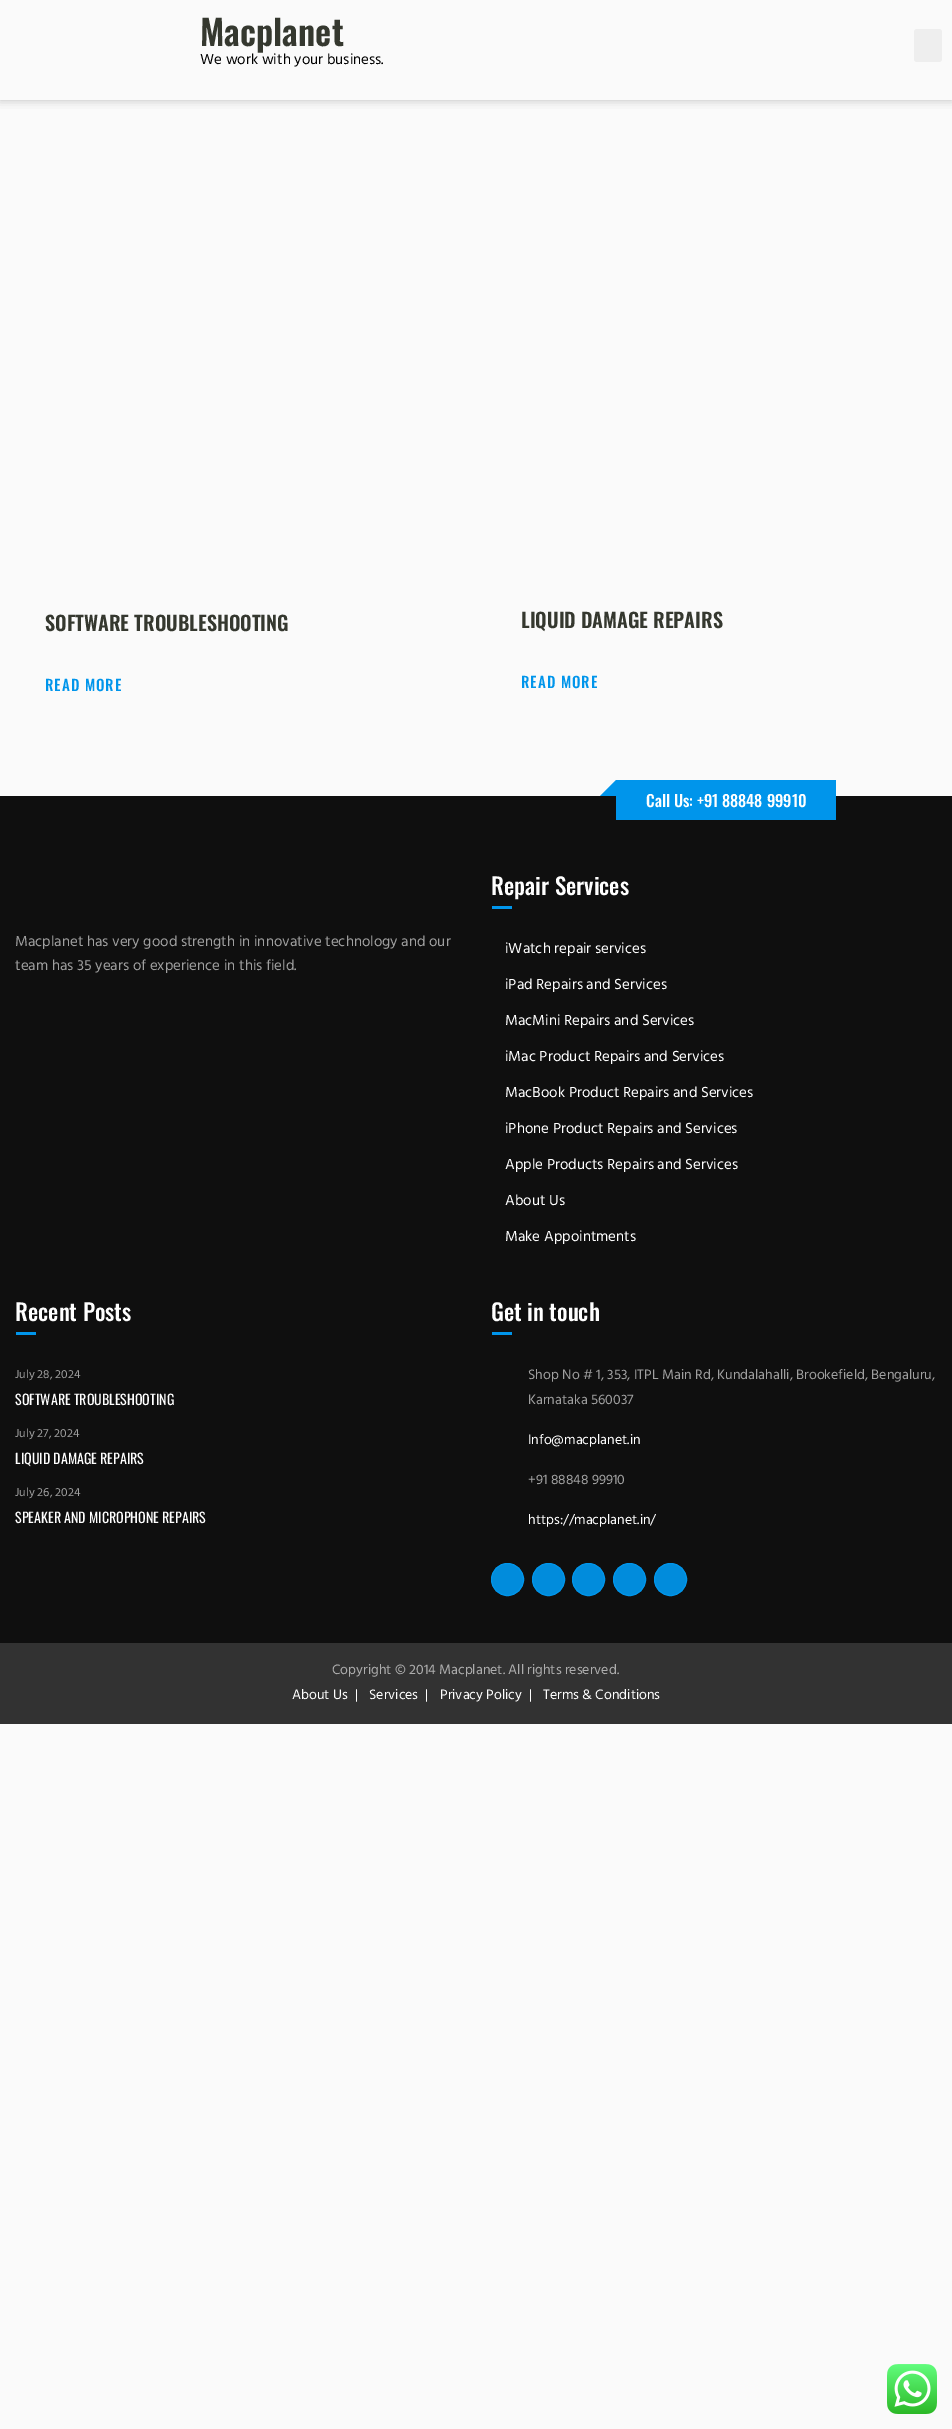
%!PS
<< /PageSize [952 2429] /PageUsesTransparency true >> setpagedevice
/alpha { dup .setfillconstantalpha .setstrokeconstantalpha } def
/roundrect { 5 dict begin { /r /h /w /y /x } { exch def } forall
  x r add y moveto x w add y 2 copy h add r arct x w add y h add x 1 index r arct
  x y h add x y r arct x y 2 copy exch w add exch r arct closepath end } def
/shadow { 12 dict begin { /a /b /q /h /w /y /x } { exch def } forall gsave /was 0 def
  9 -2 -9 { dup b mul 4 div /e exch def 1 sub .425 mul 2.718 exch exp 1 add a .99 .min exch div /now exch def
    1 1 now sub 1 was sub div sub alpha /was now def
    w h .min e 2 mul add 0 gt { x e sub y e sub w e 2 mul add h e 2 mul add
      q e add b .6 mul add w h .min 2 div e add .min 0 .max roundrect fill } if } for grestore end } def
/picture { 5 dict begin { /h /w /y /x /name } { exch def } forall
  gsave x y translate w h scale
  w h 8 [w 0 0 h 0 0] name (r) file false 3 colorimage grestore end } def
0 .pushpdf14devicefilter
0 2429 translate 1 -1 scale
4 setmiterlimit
0.98 setgray
0 0 952 2429 rectfill
gsave
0 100 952 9 rectclip
0.494 setgray
0 0 952 100 0 5 0.5 shadow
grestore
/Oswald-SemiBold [35 0 0 -35 0 0] selectfont
0.208 0.22 0.184 setrgbcolor
200 46 moveto (Macplanet) show
/Hind-Regular [15 0 0 -15 0 0] selectfont
0 setgray
200 64 moveto (We work with your business.) show
0.933 setgray
914 29 28 33 3 roundrect fill
/Oswald-SemiBold [20 0 0 -20 0 0] selectfont
0.208 0.22 0.184 setrgbcolor
45 631 moveto (SOFTWARE TROUBLESHOOTING) show
/Oswald-Medium [15 0 0 -15 0 0] selectfont
0 0.584 0.922 setrgbcolor
45 691 moveto 1 0 (READ MORE) ashow
/Oswald-SemiBold [20 0 0 -20 0 0] selectfont
0.208 0.22 0.184 setrgbcolor
521 628 moveto (LIQUID DAMAGE REPAIRS) show
/Oswald-Medium [15 0 0 -15 0 0] selectfont
0 0.584 0.922 setrgbcolor
521 688 moveto 1 0 (READ MORE) ashow
0.059 setgray
0 796 952 847 rectfill
0 0.584 0.922 setrgbcolor
616 780 220 40 rectfill
newpath 616 796 moveto 600 796 lineto 616 780 lineto closepath fill
/Oswald-Medium [16 0 0 -16 0 0] selectfont
1 setgray
646 807 moveto (Call Us: +91 88848 99910) show
/Hind-Regular [15 0 0 -15 0 0] selectfont
0.624 setgray
15 946 moveto (Macplanet has very good strength in innovative technology and our) show
15 970 moveto (team has 35 years of experience in this field.) show
/Oswald-Medium [23 0 0 -23 0 0] selectfont
1 setgray
491 895 moveto (Repair Services) show
0 0.584 0.922 setrgbcolor
492 906 20 3 rectfill
/Hind-Regular [15 0 0 -15 0 0] selectfont
1 setgray
505 953 moveto (iWatch repair services) show
505 989 moveto (iPad Repairs and Services) show
505 1025 moveto (MacMini Repairs and Services) show
505 1061 moveto (iMac Product Repairs and Services) show
505 1097 moveto (MacBook Product Repairs and Services) show
505 1133 moveto (iPhone Product Repairs and Services) show
505 1169 moveto (Apple Products Repairs and Services) show
505 1205 moveto (About Us) show
505 1241 moveto (Make Appointments) show
/Oswald-Medium [23 0 0 -23 0 0] selectfont
15 1321 moveto (Recent Posts) show
0 0.584 0.922 setrgbcolor
16 1332 20 3 rectfill
/Hind-Regular [12 0 0 -12 0 0] selectfont
0.624 setgray
15 1378 moveto (July 28, 2024) show
/Oswald-Regular [14 0 0 -14 0 0] selectfont
1 setgray
15 1405 moveto (SOFTWARE TROUBLESHOOTING) show
/Hind-Regular [12 0 0 -12 0 0] selectfont
0.624 setgray
15 1437 moveto (July 27, 2024) show
/Oswald-Regular [14 0 0 -14 0 0] selectfont
1 setgray
15 1464 moveto (LIQUID DAMAGE REPAIRS) show
/Hind-Regular [12 0 0 -12 0 0] selectfont
0.624 setgray
15 1496 moveto (July 26, 2024) show
/Oswald-Regular [14 0 0 -14 0 0] selectfont
1 setgray
15 1523 moveto (SPEAKER AND MICROPHONE REPAIRS) show
/Oswald-Medium [23 0 0 -23 0 0] selectfont
491 1321 moveto (Get in touch) show
0 0.584 0.922 setrgbcolor
492 1332 20 3 rectfill
/Hind-Regular [14 0 0 -14 0 0] selectfont
0.624 setgray
528 1379 moveto (Shop No # 1, 353, ITPL Main Rd, Kundalahalli, Brookefield, Bengaluru,) show
528 1404 moveto (Karnataka 560037) show
1 setgray
528 1444 moveto (Info@macplanet.in) show
0.624 setgray
528 1484 moveto (+91 88848 99910) show
1 setgray
528 1524 moveto (https://macplanet.in/) show
0.004 0.549 0.863 setrgbcolor
newpath 507.5 1579.5 16 0 360 arc closepath gsave fill grestore
0 0.584 0.922 setrgbcolor
stroke
0.004 0.549 0.863 setrgbcolor
newpath 548.5 1579.5 16 0 360 arc closepath gsave fill grestore
0 0.584 0.922 setrgbcolor
stroke
0.004 0.549 0.863 setrgbcolor
newpath 588.5 1579.5 16 0 360 arc closepath gsave fill grestore
0 0.584 0.922 setrgbcolor
stroke
0.004 0.549 0.863 setrgbcolor
newpath 629.5 1579.5 16 0 360 arc closepath gsave fill grestore
0 0.584 0.922 setrgbcolor
stroke
0.004 0.549 0.863 setrgbcolor
newpath 670.5 1579.5 16 0 360 arc closepath gsave fill grestore
0 0.584 0.922 setrgbcolor
stroke
0.196 setgray
0 1643 952 81 rectfill
0.678 setgray
332 1674 moveto (Copyright © 2014 Macplanet. All rights reserved.) show
1 setgray
292 1699 moveto (About Us) show
355 1699 moveto (|) show
369 1699 moveto (Services) show
425 1699 moveto (|) show
440 1699 moveto (Privacy Policy) show
529 1699 moveto (|) show
543 1699 moveto (Terms & Conditions) show
(img1.rgb) 887 2364 50 50 picture
.poppdf14devicefilter showpage
